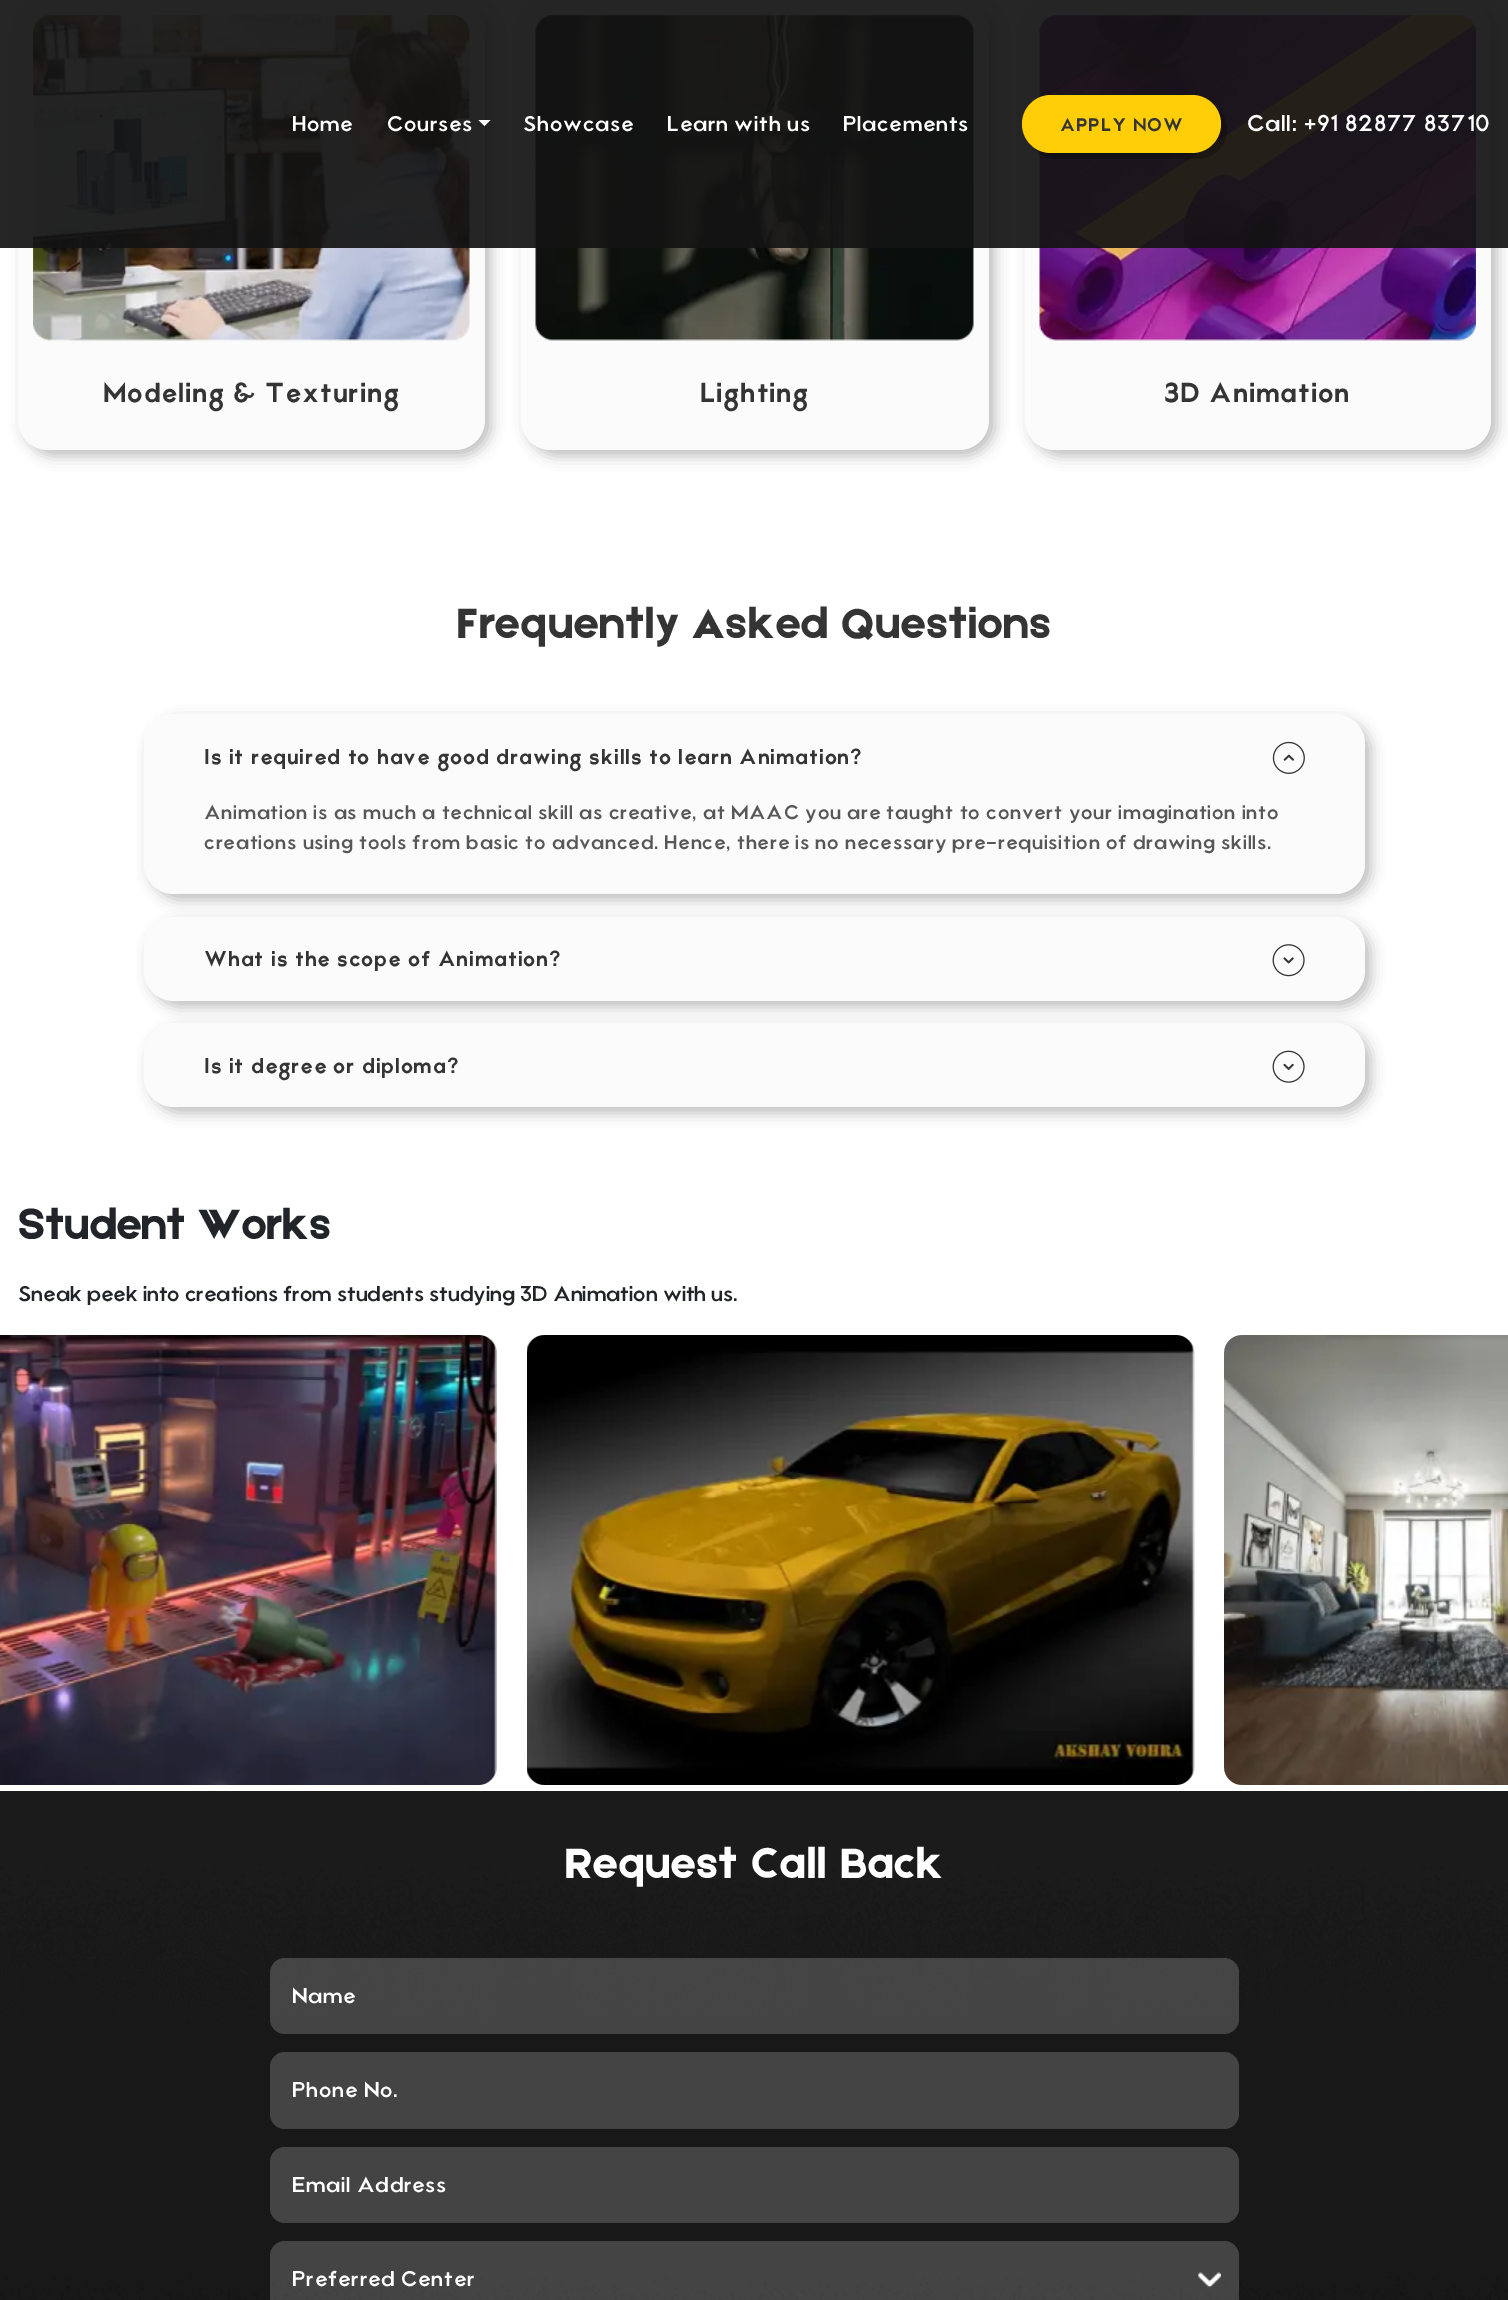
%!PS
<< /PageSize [1508 2300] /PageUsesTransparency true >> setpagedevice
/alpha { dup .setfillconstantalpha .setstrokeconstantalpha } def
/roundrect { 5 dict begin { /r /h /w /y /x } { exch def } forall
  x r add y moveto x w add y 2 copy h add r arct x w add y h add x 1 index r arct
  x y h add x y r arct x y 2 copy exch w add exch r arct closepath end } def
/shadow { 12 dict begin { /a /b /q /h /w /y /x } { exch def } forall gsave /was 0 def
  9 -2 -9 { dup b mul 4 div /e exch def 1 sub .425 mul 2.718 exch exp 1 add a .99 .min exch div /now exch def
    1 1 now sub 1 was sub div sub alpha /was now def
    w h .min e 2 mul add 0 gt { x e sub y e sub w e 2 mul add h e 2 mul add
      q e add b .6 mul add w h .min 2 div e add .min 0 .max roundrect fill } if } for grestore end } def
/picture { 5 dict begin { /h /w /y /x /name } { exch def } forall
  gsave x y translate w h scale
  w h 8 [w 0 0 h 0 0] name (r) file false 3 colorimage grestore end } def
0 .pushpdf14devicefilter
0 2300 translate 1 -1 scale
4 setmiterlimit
1 setgray
0 0 1508 2300 rectfill
0 setgray
24 6 467 450 30 7 0.25 shadow
0.984 setgray
18 0 467 450 30 roundrect fill
(img1.rgb) 33 15 437 326 picture
0 setgray
527 6 468 450 30 7 0.25 shadow
0.984 setgray
521 0 468 450 30 roundrect fill
(img2.rgb) 535 15 439 326 picture
0 setgray
1031 6 466 450 30 7 0.25 shadow
0.984 setgray
1025 0 466 450 30 roundrect fill
(img3.rgb) 1039 15 437 326 picture
0.92 alpha
0.075 setgray
0 0 1508 248 rectfill
/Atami-Regular [21 0 0 -21 0 0] selectfont
1 alpha
1 setgray
292 131 moveto 0.75 0 (Home) ashow
387 131 moveto 0.75 0 (Courses) ashow
newpath 478.5 120 moveto 490.5 120 lineto 484.5 126 lineto closepath fill
523 131 moveto 0.75 0 (Showcase) ashow
667 131 moveto 0.75 0 (Learn with us) ashow
843 131 moveto 0.75 0 (Placements) ashow
0.25 alpha
0 setgray
newpath 1034 148 moveto 1039 155 1048 159 1057 159 curveto 1198 159 lineto 1214 159 1227 146 1227 130 curveto 1227 121 1223 112 1216 107 curveto 1219 112 1221 118 1221 124 curveto 1221 140 1208 153 1192 153 curveto 1051 153 lineto 1045 153 1039 151 1034 148 curveto closepath fill
1 alpha
1 0.808 0.027 setrgbcolor
1022 95 199 58 29 roundrect fill
/Atami-Bold [18 0 0 -18 0 0] selectfont
0.204 setgray
1060 131 moveto 0.75 0 (APPLY NOW) ashow
/Atami-Regular [22.5 0 0 -22.5 0 0] selectfont
1 setgray
1247 131 moveto 0.75 0 (Call: +91 82877 83710) ashow
/Atami-Bold [27 0 0 -27 0 0] selectfont
0.204 setgray
103 402 moveto 0.75 0 (Modeling & Texturing) ashow
700 402 moveto 0.75 0 (Lighting) ashow
1164 402 moveto 0.75 0 (3D Animation) ashow
/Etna-Regular [45 0 0 -45 0 0] selectfont
457 638 moveto 0.75 0 (Frequently Asked Questions) ashow
0 setgray
150 720 1221 180 30 7 0.25 shadow
0.984 setgray
144 714 1221 180 30 roundrect fill
/Atami-Bold [21 0 0 -21 0 0] selectfont
0.204 setgray
204 764 moveto 0.75 0 (Is it required to have good drawing skills to learn Animation?) ashow
(img4.rgb) 1272 741 33 33 picture
/Atami-Regular [19.5 0 0 -19.5 0 0] selectfont
0.341 setgray
204 819 moveto 0.75 0 (Animation is as much a technical skill as creative, at MAAC you are taught to convert your imagination into) ashow
204 849 moveto 0.75 0 (creations using tools from basic to advanced. Hence, there is no necessary pre-requisition of drawing skills.) ashow
0 setgray
150 923 1221 84 30 7 0.25 shadow
0.984 setgray
144 917 1221 84 30 roundrect fill
/Atami-Bold [21 0 0 -21 0 0] selectfont
0.204 setgray
204 966 moveto 0.75 0 (What is the scope of Animation?) ashow
(img5.rgb) 1272 944 33 33 picture
0 setgray
150 1029 1221 84 30 7 0.25 shadow
0.984 setgray
144 1023 1221 84 30 roundrect fill
0.204 setgray
204 1073 moveto 0.75 0 (Is it degree or diploma?) ashow
(img6.rgb) 1272 1050 33 33 picture
/Etna-Regular [45 0 0 -45 0 0] selectfont
0.129 0.145 0.161 setrgbcolor
18 1239 moveto (Student Works) show
/Atami-Regular [21 0 0 -21 0 0] selectfont
18 1301 moveto (Sneak peek into creations from students studying 3D Animation with us.) show
(img7.rgb) 0 1335 497 450 picture
(img8.rgb) 527 1335 668 450 picture
(img9.rgb) 1224 1335 284 450 picture
(img10.rgb) 0 1791 1508 509 picture
/Etna-Regular [45 0 0 -45 0 0] selectfont
1 setgray
565 1878 moveto 0.75 0 (Request Call Back) ashow
0.2 alpha
0.953 setgray
270 1958 969 76 15 roundrect fill
/Atami-Regular [21 0 0 -21 0 0] selectfont
1 alpha
1 setgray
292 2003 moveto 0.75 0 (Name) ashow
0.267 setgray
270 2052 969 77 15 roundrect fill
1 setgray
292 2097 moveto 0.75 0 (Phone No.) ashow
0.267 setgray
270 2147 969 76 15 roundrect fill
1 setgray
292 2192 moveto 0.75 0 (Email Address) ashow
0.2 alpha
0.953 setgray
270 2241 969 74 15 roundrect fill
1 alpha
(img11.rgb) 1198 2272 23 15 picture
1 setgray
292 2286 moveto 0.75 0 (Preferred Center) ashow
.poppdf14devicefilter showpage
